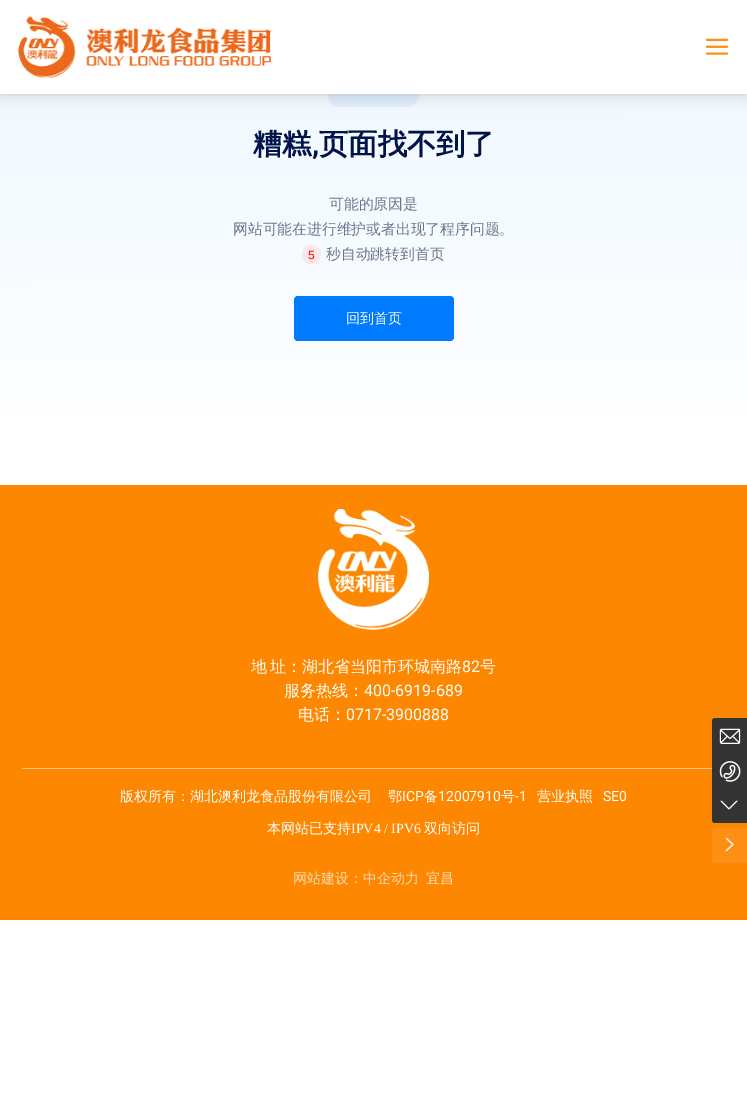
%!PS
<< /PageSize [747 1097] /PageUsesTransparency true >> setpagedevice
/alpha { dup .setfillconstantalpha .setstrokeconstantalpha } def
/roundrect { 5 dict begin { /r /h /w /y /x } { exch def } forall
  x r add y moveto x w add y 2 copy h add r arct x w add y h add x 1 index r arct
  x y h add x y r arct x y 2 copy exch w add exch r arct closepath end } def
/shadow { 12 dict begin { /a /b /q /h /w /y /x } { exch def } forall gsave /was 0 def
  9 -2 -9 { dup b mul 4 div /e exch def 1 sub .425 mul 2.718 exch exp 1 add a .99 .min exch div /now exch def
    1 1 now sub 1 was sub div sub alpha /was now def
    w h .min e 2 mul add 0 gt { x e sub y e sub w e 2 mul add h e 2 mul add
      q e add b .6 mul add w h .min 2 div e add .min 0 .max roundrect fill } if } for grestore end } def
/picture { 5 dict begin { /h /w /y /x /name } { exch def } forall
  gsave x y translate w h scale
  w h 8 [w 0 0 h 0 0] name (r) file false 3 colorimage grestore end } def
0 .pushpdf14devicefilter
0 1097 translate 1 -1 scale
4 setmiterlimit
1 setgray
0 0 747 1097 rectfill
gsave newpath 0 94 moveto 747 94 lineto 747 414 lineto 0 414 lineto closepath clip newpath
<< /ShadingType 2 /ColorSpace /DeviceRGB /Coords [373 0 374 485] /Extend [true true] /Function << /FunctionType 2 /Domain [0 1] /C0 [0.933 0.969 1] /C1 [1 1 1] /N 1 >> >> shfill grestore
0.875 0.933 0.984 setrgbcolor
328 83 91 24 12 roundrect fill
0 setgray
0 0 747 94 0 7.5 0.2 shadow
1 setgray
0 0 747 94 rectfill
(img1.rgb) 18 16 253 62 picture
(img2.rgb) 705 38 24 17 picture
/WenQuanYiZenHei-Bold [29.25 0 0 -29.25 0 0] selectfont
0 0.075 0.294 setrgbcolor
253 154 moveto (糟糕) show
/Roboto-Bold [29.25 0 0 -29.25 0 0] selectfont
312 154 moveto (,) show
/WenQuanYiZenHei-Bold [29.25 0 0 -29.25 0 0] selectfont
319 154 moveto (页面找不到了) show
/WenQuanYiZenHei-Medium [14.8 0 0 -14.8 0 0] selectfont
0.412 0.459 0.545 setrgbcolor
329 209 moveto (可能的原因是) show
233 234 moveto (网站可能在进行维护或者出现了程序问题。) show
0.973 0.906 0.922 setrgbcolor
newpath 311.5 254.5 9.5 0 360 arc closepath fill
/LiberationSans-Regular [12 0 0 -12 0 0] selectfont
1 0 0 setrgbcolor
308 259 moveto (5) show
/WenQuanYiZenHei-Medium [14.8 0 0 -14.8 0 0] selectfont
0.412 0.459 0.545 setrgbcolor
326 259 moveto (秒自动跳转到首页) show
0 0.482 1 setrgbcolor
294 296 160 45 4 roundrect fill
/WenQuanYiZenHei-Medium [14 0 0 -14 0 0] selectfont
1 setgray
346 323 moveto (回到首页) show
0.992 0.529 0.004 setrgbcolor
0 485 747 435 rectfill
(img3.rgb) 318 509 111 121 picture
/WenQuanYiZenHei-Medium [16 0 0 -16 0 0] selectfont
1 setgray
251 672 moveto (地) show
270 672 moveto (址：湖北省当阳市环城南路) show
/Roboto-Regular [16 0 0 -16 0 0] selectfont
462 672 moveto (82) show
/WenQuanYiZenHei-Medium [16 0 0 -16 0 0] selectfont
480 672 moveto (号) show
284 696 moveto (服务热线：) show
/Roboto-Regular [16 0 0 -16 0 0] selectfont
364 696 moveto (400-6919-689) show
/WenQuanYiZenHei-Medium [16 0 0 -16 0 0] selectfont
298 720 moveto (电话：) show
/Roboto-Regular [16 0 0 -16 0 0] selectfont
346 720 moveto (0717-3900888) show
0.996 0.765 0.502 setrgbcolor
22 768 690 1 rectfill
/WenQuanYiZenHei-Medium [14 0 0 -14 0 0] selectfont
1 setgray
120 801 moveto (版权所有：湖北澳利龙食品股份有限公司) show
388 801 moveto (鄂) show
/Roboto-Regular [14 0 0 -14 0 0] selectfont
402 801 moveto (ICP) show
/WenQuanYiZenHei-Medium [14 0 0 -14 0 0] selectfont
424 801 moveto (备) show
/Roboto-Regular [14 0 0 -14 0 0] selectfont
438 801 moveto (12007910) show
/WenQuanYiZenHei-Medium [14 0 0 -14 0 0] selectfont
501 801 moveto (号) show
/Roboto-Regular [14 0 0 -14 0 0] selectfont
515 801 moveto (-1) show
/WenQuanYiZenHei-Medium [14 0 0 -14 0 0] selectfont
537 801 moveto (营业执照) show
/Roboto-Regular [14 0 0 -14 0 0] selectfont
603 801 moveto (SE0) show
/WenQuanYiZenHei-Medium [14 0 0 -14 0 0] selectfont
267 833 moveto (本网站已支持) show
/LiberationSerif-Regular [14 0 0 -14 0 0] selectfont
351 833 moveto (IPV4 / IPV6) show
/WenQuanYiZenHei-Medium [14 0 0 -14 0 0] selectfont
424 833 moveto (双向访问) show
0.996 0.859 0.702 setrgbcolor
293 883 moveto (网站建设：中企动力) show
426 883 moveto (宜昌) show
0.2 setgray
newpath 715 718 moveto 747 718 lineto 747 823 lineto 715 823 lineto 713.5 823 712 821.5 712 820 curveto 712 721 lineto 712 719.5 713.5 718 715 718 curveto closepath fill
(img4.rgb) 719 728 22 16 picture
(img5.rgb) 719 761 22 21 picture
(img6.rgb) 720 800 18 10 picture
0.992 0.565 0.078 setrgbcolor
newpath 715 828 moveto 747 828 lineto 747 863 lineto 715 863 lineto 713.5 863 712 861.5 712 860 curveto 712 831 lineto 712 829.5 713.5 828 715 828 curveto closepath fill
(img7.rgb) 725 837 9 15 picture
.poppdf14devicefilter showpage
